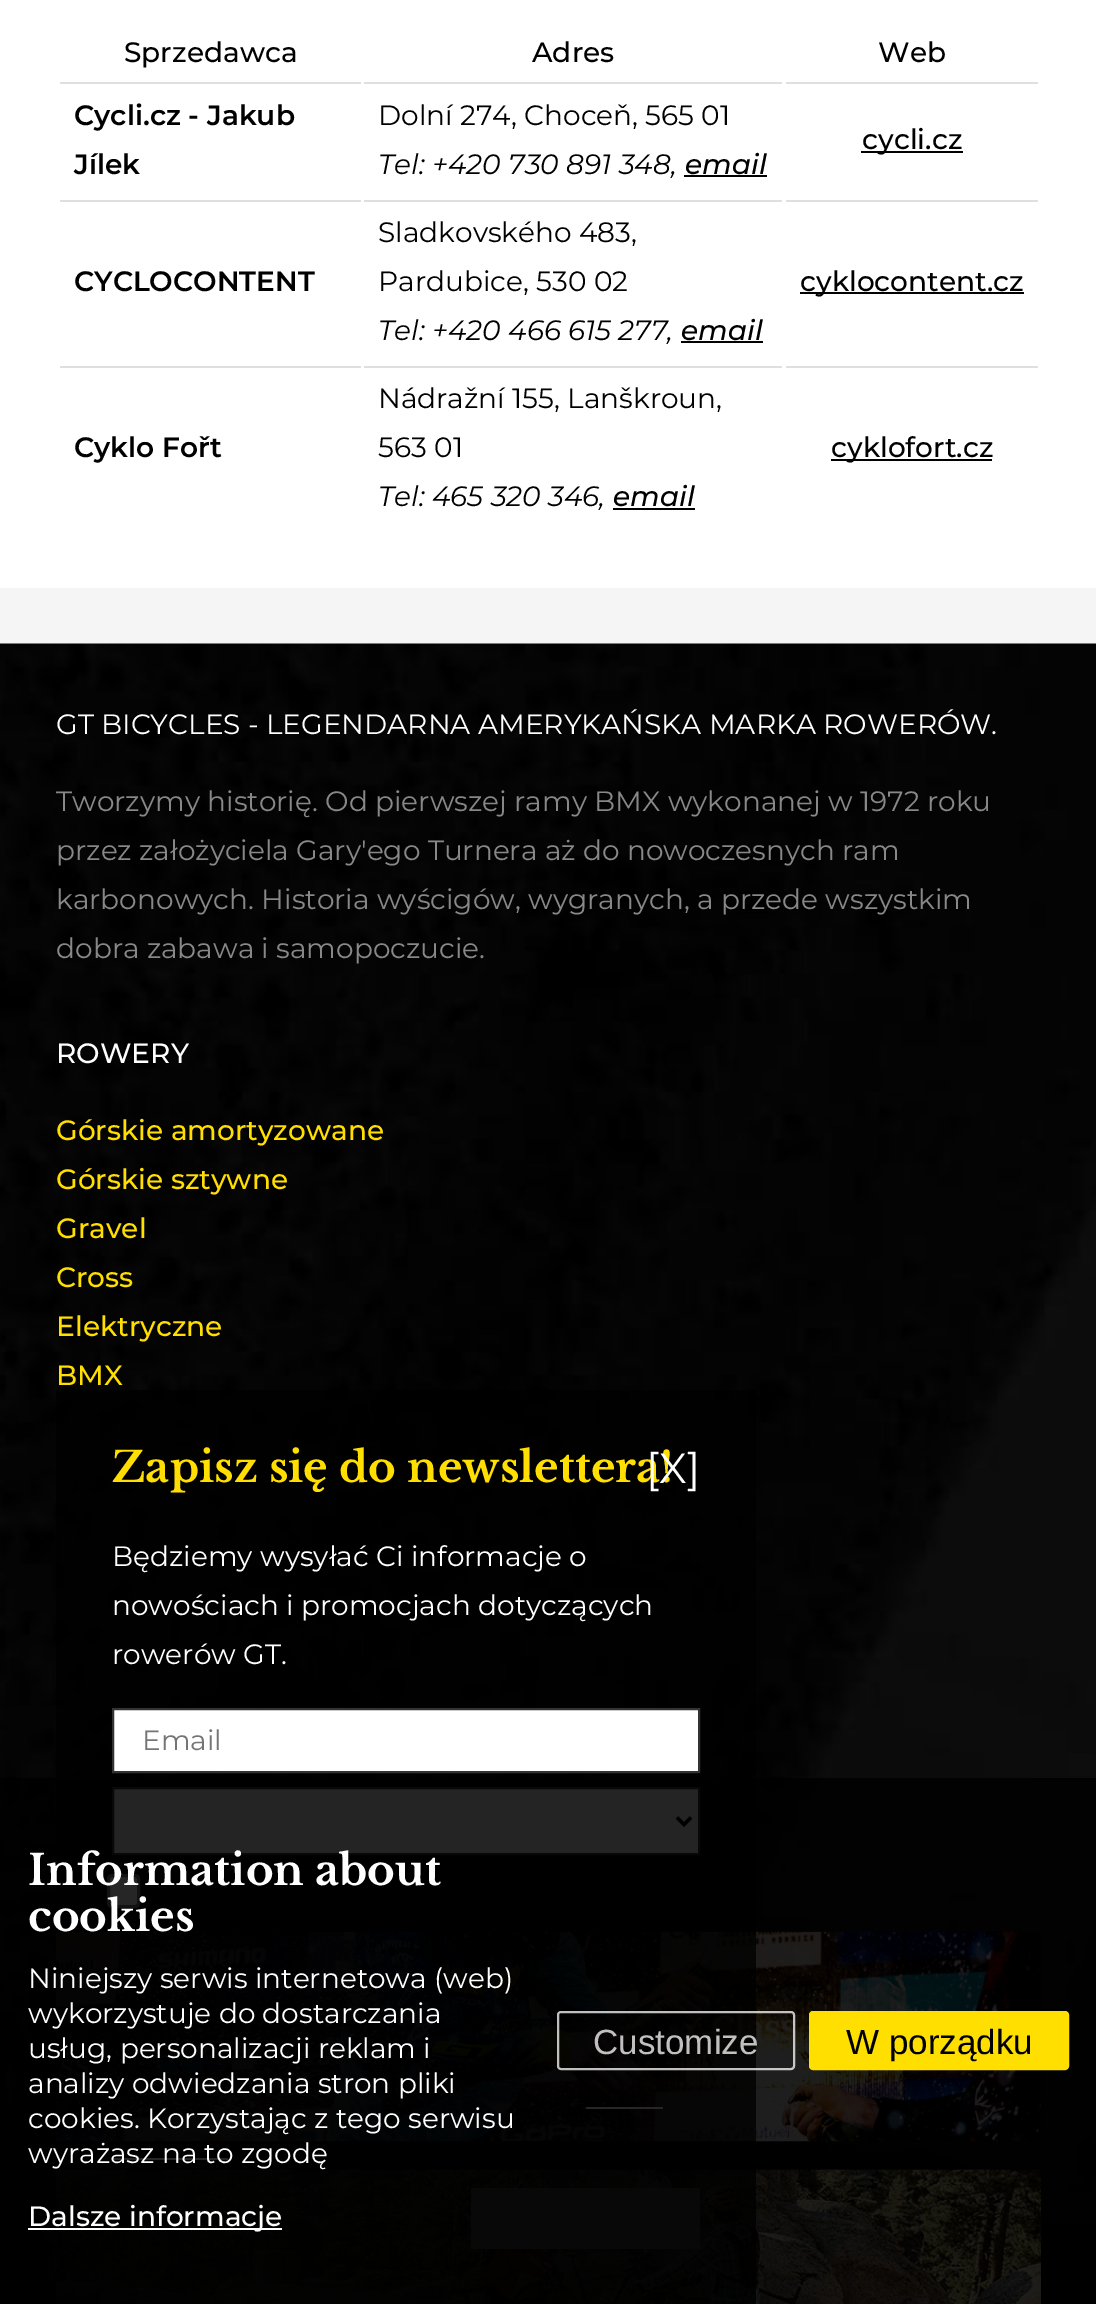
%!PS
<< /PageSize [1096 2304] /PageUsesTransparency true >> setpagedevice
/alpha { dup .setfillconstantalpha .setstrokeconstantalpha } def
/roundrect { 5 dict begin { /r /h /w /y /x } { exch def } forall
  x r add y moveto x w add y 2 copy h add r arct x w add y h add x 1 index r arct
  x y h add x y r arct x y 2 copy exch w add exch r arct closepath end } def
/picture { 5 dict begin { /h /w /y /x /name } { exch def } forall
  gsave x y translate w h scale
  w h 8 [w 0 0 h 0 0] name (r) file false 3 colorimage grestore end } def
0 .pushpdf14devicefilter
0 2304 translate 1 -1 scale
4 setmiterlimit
0.961 setgray
0 0 1096 2304 rectfill
1 setgray
0 0 1096 588 rectfill
/Montserrat-Medium [28 0 0 -28 0 0] selectfont
0 setgray
124 62 moveto (Sprzedawca) show
532 62 moveto (Adres) show
878 62 moveto (Web) show
0.875 setgray
60 82 301 2 rectfill
/Montserrat-SemiBold [28 0 0 -28 0 0] selectfont
0 setgray
74 125 moveto (Cycli.cz - Jakub) show
74 174 moveto (Jílek) show
0.875 setgray
364 82 418 2 rectfill
/Montserrat-Regular [28 0 0 -28 0 0] selectfont
0 setgray
378 125 moveto (Dolní 274, Choceň, 565 01) show
/Montserrat-Italic [28 0 0 -28 0 0] selectfont
378 174 moveto (Tel: +420 730 891 348,) show
/Montserrat-MediumItalic [28 0 0 -28 0 0] selectfont
685 174 moveto (email) show
684 175 83 2 rectfill
0.875 setgray
786 82 252 2 rectfill
0 setgray
861 151 102 2 rectfill
/Montserrat-Medium [28 0 0 -28 0 0] selectfont
862 149 moveto (cycli.cz) show
0.875 setgray
60 200 301 2 rectfill
/Montserrat-SemiBold [28 0 0 -28 0 0] selectfont
0 setgray
74 291 moveto (CYCLOCONTENT) show
0.875 setgray
364 200 418 2 rectfill
/Montserrat-Regular [28 0 0 -28 0 0] selectfont
0 setgray
378 242 moveto (Sladkovského 483,) show
378 291 moveto (Pardubice, 530 02) show
/Montserrat-Italic [28 0 0 -28 0 0] selectfont
378 340 moveto (Tel: +420 466 615 277,) show
/Montserrat-MediumItalic [28 0 0 -28 0 0] selectfont
681 340 moveto (email) show
681 341 82 2 rectfill
0.875 setgray
786 200 252 2 rectfill
0 setgray
800 292 224 2 rectfill
/Montserrat-Medium [28 0 0 -28 0 0] selectfont
800 291 moveto (cyklocontent.cz) show
0.875 setgray
60 366 301 2 rectfill
/Montserrat-SemiBold [28 0 0 -28 0 0] selectfont
0 setgray
74 457 moveto (Cyklo Fořt) show
0.875 setgray
364 366 418 2 rectfill
/Montserrat-Regular [28 0 0 -28 0 0] selectfont
0 setgray
378 408 moveto (Nádražní 155, Lanškroun,) show
378 457 moveto (563 01) show
/Montserrat-Italic [28 0 0 -28 0 0] selectfont
378 506 moveto (Tel: 465 320 346,) show
/Montserrat-MediumItalic [28 0 0 -28 0 0] selectfont
613 506 moveto (email) show
613 508 82 2 rectfill
0.875 setgray
786 366 252 2 rectfill
0 setgray
831 459 161 2 rectfill
/Montserrat-Medium [28 0 0 -28 0 0] selectfont
831 457 moveto (cyklofort.cz) show
(img1.rgb) 0 643 1096 1661 picture
/Montserrat-Regular [28 0 0 -28 0 0] selectfont
1 setgray
56 734 moveto (GT BICYCLES - LEGENDARNA AMERYKAŃSKA MARKA ROWERÓW.) show
0.533 setgray
56 811 moveto (Tworzymy historię. Od pierwszej ramy BMX wykonanej w 1972 roku) show
56 860 moveto (przez założyciela Gary'ego Turnera aż do nowoczesnych ram) show
56 909 moveto (karbonowych. Historia wyścigów, wygranych, a przede wszystkim) show
56 958 moveto (dobra zabawa i samopoczucie.) show
/Montserrat-Medium [28 0 0 -28 0 0] selectfont
1 setgray
56 1063 moveto (ROWERY) show
1 0.871 0 setrgbcolor
56 1140 moveto (Górskie amortyzowane) show
56 1189 moveto (Górskie sztywne) show
56 1238 moveto (Gravel) show
56 1287 moveto (Cross) show
56 1336 moveto (Elektryczne) show
56 1385 moveto (BMX) show
(img2.rgb) 56 1931 985 211 picture
0.2 alpha
0 setgray
newpath 58 1932 moveto 1039 1932 lineto 1040 1932 1041 1933 1041 1934 curveto 1041 2142 lineto 56 2142 lineto 56 1934 lineto 56 1933 57 1932 58 1932 curveto closepath fill
1 alpha
(img3.rgb) 56 2169 985 135 picture
0.2 alpha
56 2170 985 134 rectfill
0.8 alpha
56 1390 700 914 rectfill
/LibreBaskerville-Bold [42 0 0 -42 0 0] selectfont
1 alpha
1 0.871 0 setrgbcolor
112 1482 moveto (Zapisz się do newslettera!) show
/Montserrat-Regular [28 0 0 -28 0 0] selectfont
1 setgray
112 1566 moveto (Będziemy wysyłać Ci informacje o) show
112 1615 moveto (nowościach i promocjach dotyczących) show
112 1664 moveto (rowerów GT.) show
newpath 113 1709 moveto 699 1709 lineto 699 1772 lineto 113 1772 lineto closepath gsave fill grestore
0.2 setgray
2 setlinewidth
stroke
0.459 setgray
142 1750 moveto (Email) show
0.937 setgray
newpath 113 1788 moveto 699 1788 lineto 699 1854 lineto 113 1854 lineto closepath gsave fill grestore
0.2 setgray
stroke
0 setgray
3.5 setlinewidth
newpath 677 1817.5 moveto 684 1824.5 lineto 691 1817.5 lineto stroke
1 setgray
108.5 1875.5 30 31 3.5 roundrect gsave fill grestore
0.463 setgray
3 setlinewidth
stroke
1 setgray
586 2107 77 2 rectfill
112 2158 116 2 rectfill
0.2 setgray
471 2188 229 61 rectfill
/Montserrat-Regular [42 0 0 -42 0 0] selectfont
1 setgray
646 1483 moveto ([X]) show
0.85 alpha
0 setgray
0 1778 1096 526 rectfill
/LibreBaskerville-Bold [42 0 0 -42 0 0] selectfont
1 alpha
1 setgray
28 1885 moveto (Information about) show
28 1931 moveto (cookies) show
/Montserrat-Regular [28 0 0 -28 0 0] selectfont
28 1988 moveto (Niniejszy serwis internetowa \(web\)) show
28 2023 moveto (wykorzystuje do dostarczania) show
28 2058 moveto (usług, personalizacji reklam i) show
28 2093 moveto (analizy odwiedzania stron pliki) show
28 2128 moveto (cookies. Korzystając z tego serwisu) show
28 2163 moveto (wyrażasz na to zgodę) show
28 2228 254 2 rectfill
/Montserrat-Medium [28 0 0 -28 0 0] selectfont
28 2226 moveto (Dalsze informacje) show
0.75 alpha
2 setlinewidth
558 2012 236 57 3 roundrect stroke
/LiberationSans-Regular [35 0 0 -35 0 0] selectfont
1 alpha
0.753 setgray
593 2054 moveto (Customize) show
1 0.875 0 setrgbcolor
810 2012 258 57 3 roundrect gsave fill grestore
stroke
0 setgray
846 2054 moveto (W porządku) show
.poppdf14devicefilter showpage
